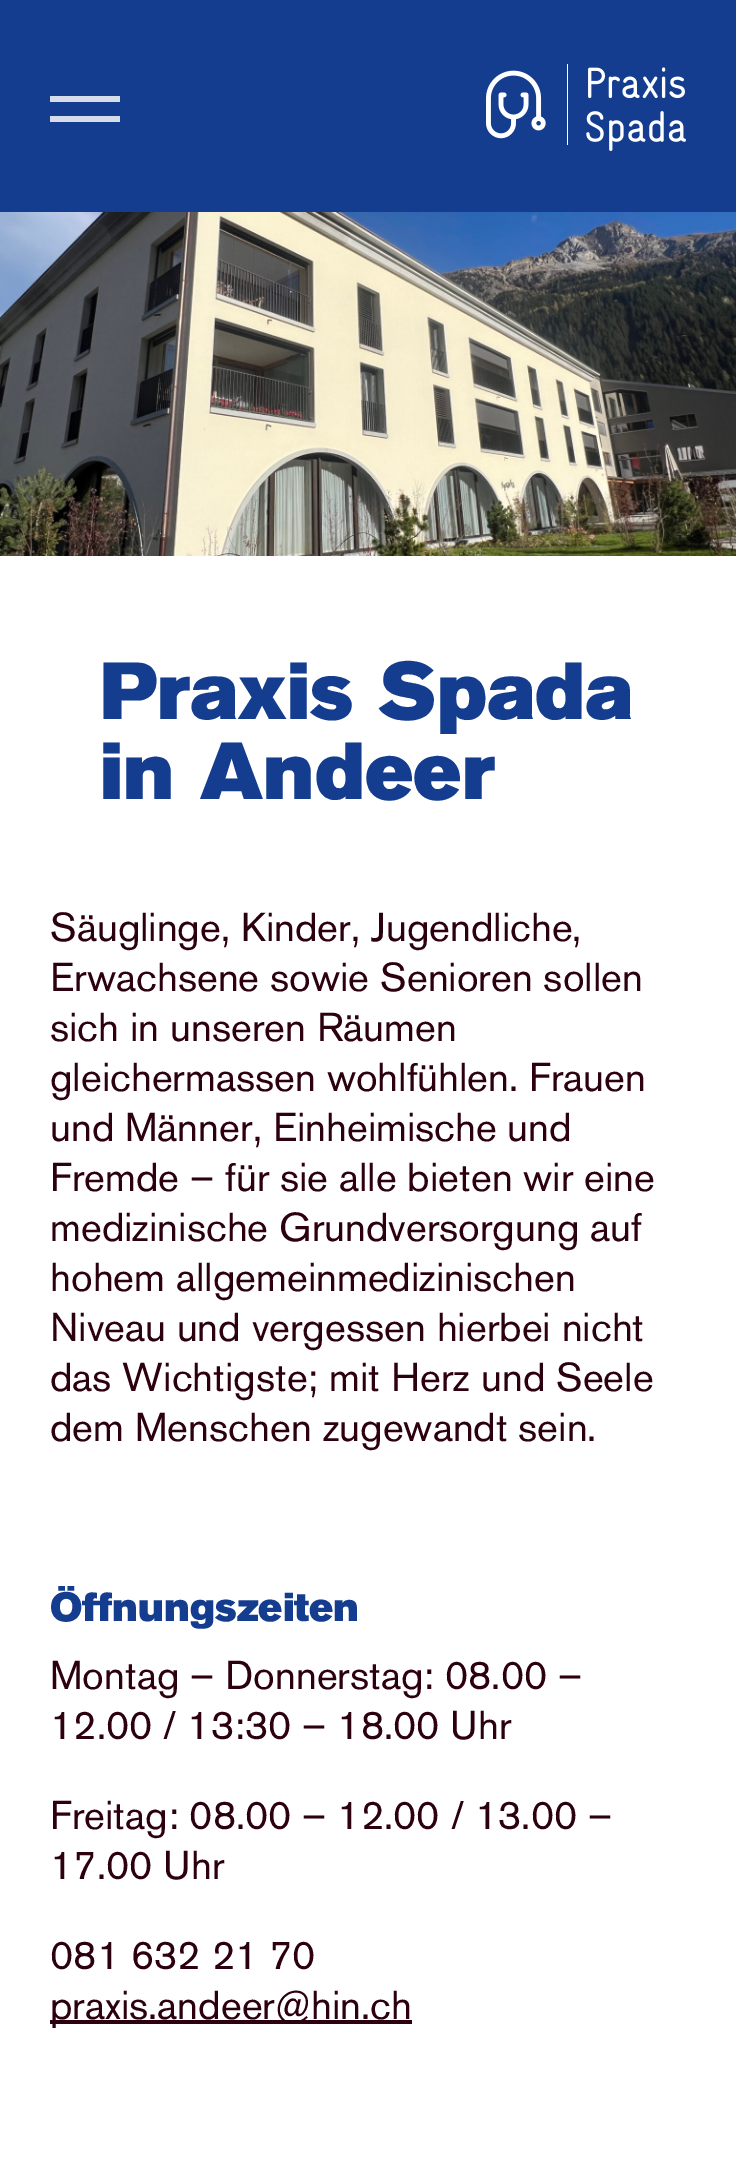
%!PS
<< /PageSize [736 2178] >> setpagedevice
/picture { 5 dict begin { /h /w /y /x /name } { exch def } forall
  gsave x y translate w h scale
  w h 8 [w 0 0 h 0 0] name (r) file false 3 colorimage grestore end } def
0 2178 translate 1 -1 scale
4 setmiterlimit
1 setgray
0 0 736 2178 rectfill
0.078 0.239 0.561 setrgbcolor
0 0 736 212 rectfill
0.839 0.867 0.918 setrgbcolor
50 96 70 6 rectfill
50 116 70 6 rectfill
(img1.rgb) 486 64 200 87 picture
(img2.rgb) 0 212 736 344 picture
/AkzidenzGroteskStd-Black [80 0 0 -80 0 0] selectfont
0.078 0.239 0.561 setrgbcolor
100 719 moveto (Praxis Spada) show
100 799 moveto (in Andeer) show
/AkzidenzGroteskStd-Regular [40 0 0 -40 0 0] selectfont
0.173 0 0.055 setrgbcolor
50 941 moveto (Säuglinge, Kinder, Jugendliche,) show
50 991 moveto (Erwachsene sowie Senioren sollen) show
50 1041 moveto (sich in unseren Räumen) show
50 1091 moveto (gleichermassen wohlfühlen. Frauen) show
50 1141 moveto (und Männer, Einheimische und) show
50 1191 moveto (Fremde – für sie alle bieten wir eine) show
50 1241 moveto (medizinische Grundversorgung auf) show
50 1291 moveto (hohem allgemeinmedizinischen) show
50 1341 moveto (Niveau und vergessen hierbei nicht) show
50 1391 moveto (das Wichtigste; mit Herz und Seele) show
50 1441 moveto (dem Menschen zugewandt sein.) show
/AkzidenzGroteskStd-Black [40 0 0 -40 0 0] selectfont
0.078 0.239 0.561 setrgbcolor
50 1621 moveto (Öffnungszeiten) show
/AkzidenzGroteskStd-Regular [40 0 0 -40 0 0] selectfont
0.173 0 0.055 setrgbcolor
50 1689 moveto (Montag – Donnerstag: 08.00 –) show
50 1739 moveto (12.00 / 13:30 – 18.00 Uhr) show
50 1829 moveto (Freitag: 08.00 – 12.00 / 13.00 –) show
50 1879 moveto (17.00 Uhr) show
50 1969 moveto (081 632 21 70) show
50 2020 362 4 rectfill
50 2019 moveto (praxis.andeer@hin.ch) show
showpage
